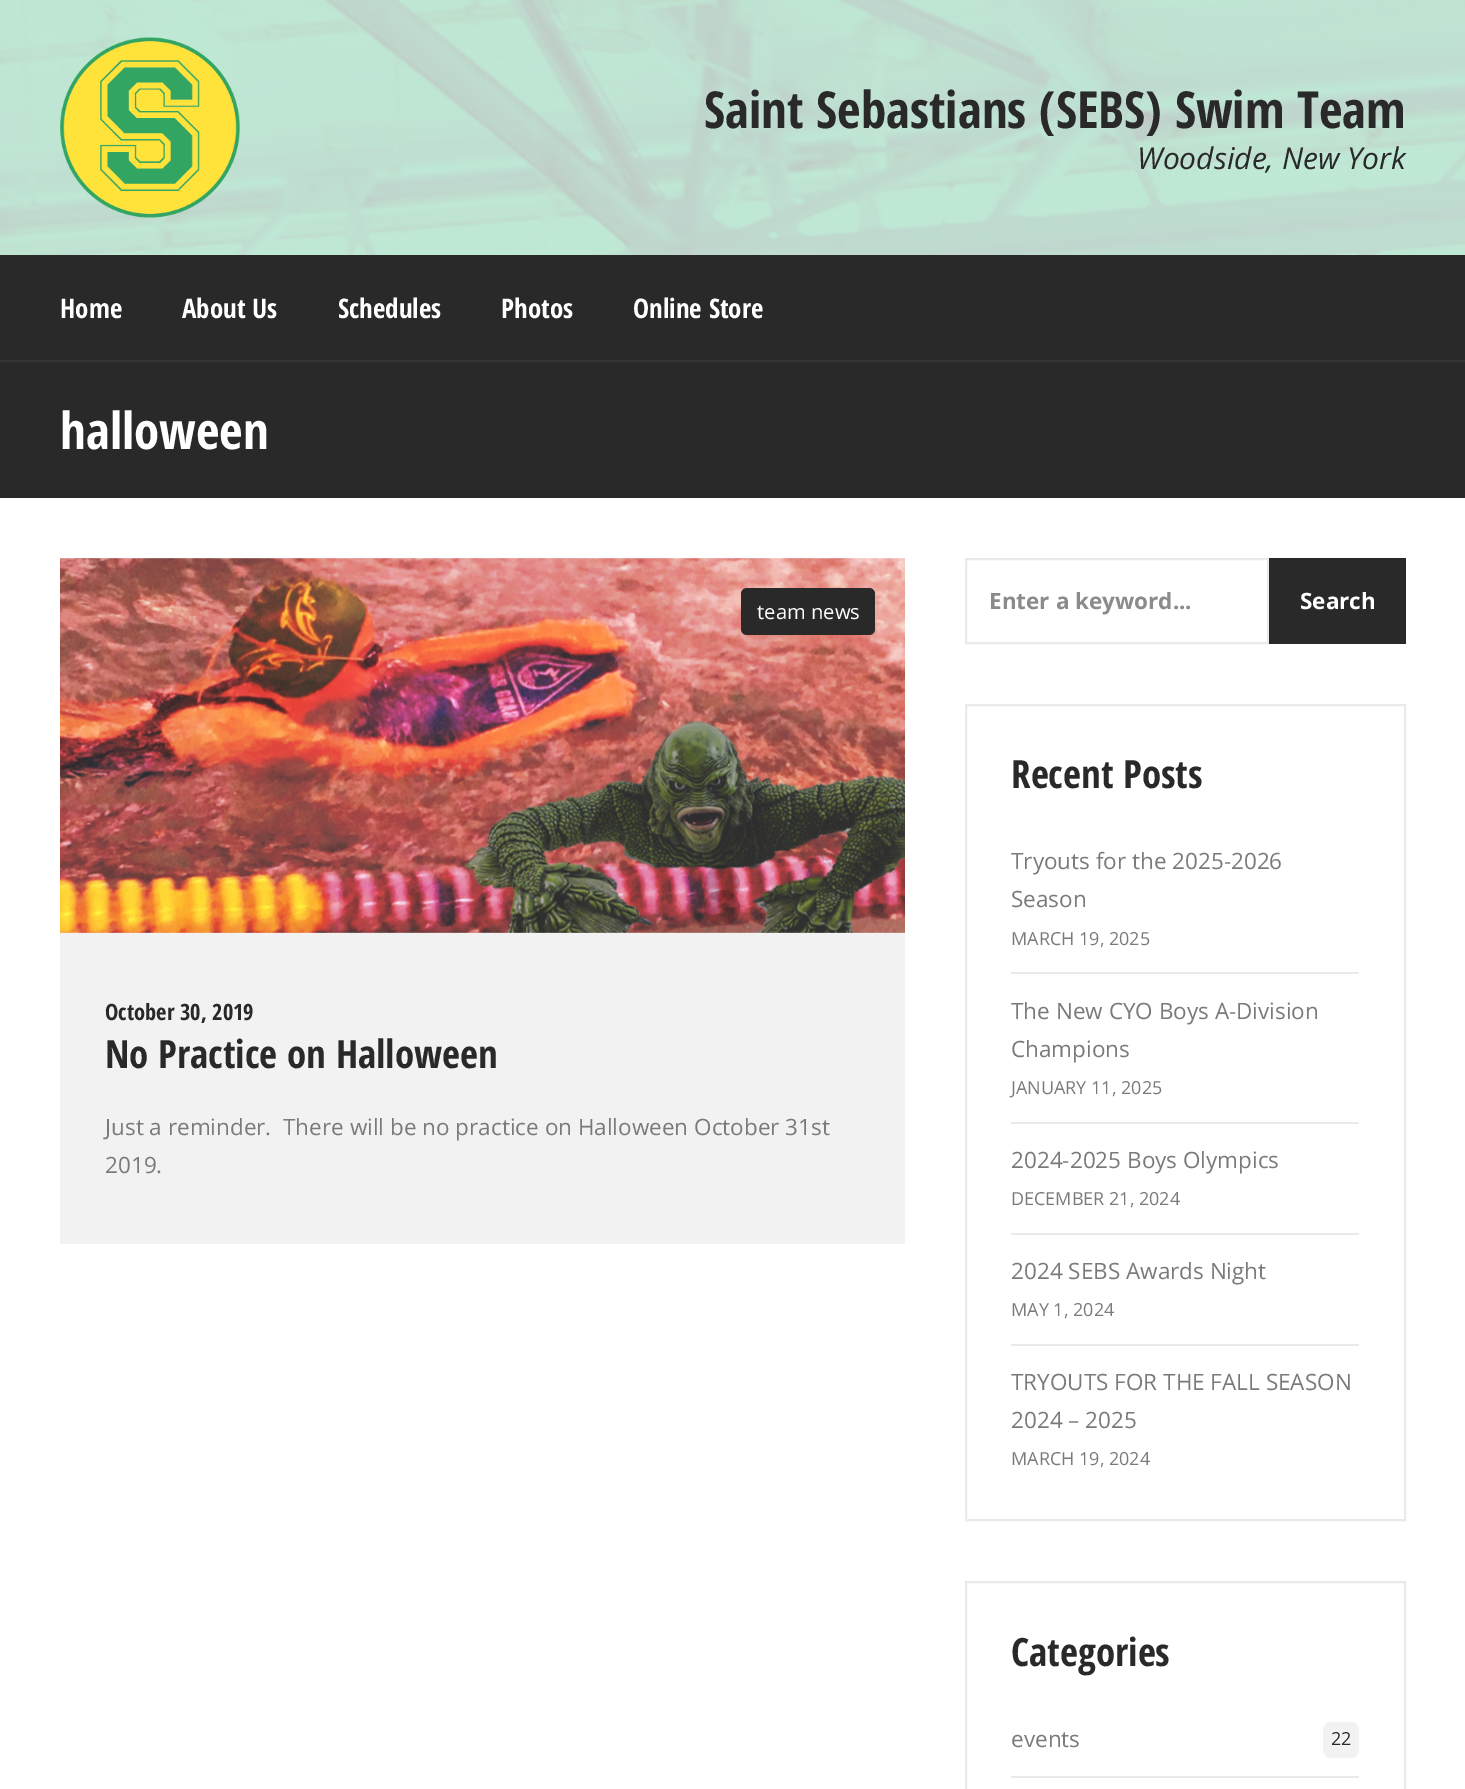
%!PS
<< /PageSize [1465 1789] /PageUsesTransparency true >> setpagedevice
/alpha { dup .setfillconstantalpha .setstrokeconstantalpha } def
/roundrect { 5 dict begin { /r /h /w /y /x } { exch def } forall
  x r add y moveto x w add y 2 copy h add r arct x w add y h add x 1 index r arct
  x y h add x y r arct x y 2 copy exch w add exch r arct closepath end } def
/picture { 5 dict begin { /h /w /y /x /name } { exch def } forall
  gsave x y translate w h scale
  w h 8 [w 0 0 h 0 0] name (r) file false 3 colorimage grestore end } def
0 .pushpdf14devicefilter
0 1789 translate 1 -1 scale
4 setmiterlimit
1 setgray
0 0 1465 1789 rectfill
(img1.rgb) 0 0 1465 255 picture
0.7 alpha
0 0 1465 255 rectfill
1 alpha
(img2.rgb) 60 37 180 181 picture
/OpenSansCondensed-Bold [51 0 0 -51 0 0] selectfont
0.161 setgray
704 128 moveto (Saint Sebastians \(SEBS\) Swim Team) show
/OpenSans-Italic [30 0 0 -30 0 0] selectfont
1137 169 moveto (Woodside, New York) show
0 255 1465 105 rectfill
/OpenSansCondensed-Bold [27 0 0 -27 0 0] selectfont
1 setgray
60 318 moveto (Home) show
182 318 moveto (About Us) show
338 318 moveto (Schedules) show
501 318 moveto (Photos) show
633 318 moveto (Online Store) show
0.161 setgray
0 362 1465 136 rectfill
0.204 setgray
0 360 1465 2 rectfill
/OpenSansCondensed-Bold [51 0 0 -51 0 0] selectfont
1 setgray
60 449 moveto (halloween) show
(img3.rgb) 60 558 845 375 picture
0.161 setgray
741 588 134 47 6 roundrect fill
/OpenSans-Regular [20.25 0 0 -20.25 0 0] selectfont
1 setgray
757 619 moveto (team news) show
0.949 setgray
60 933 845 311 rectfill
/OpenSansCondensed-Bold [22.5 0 0 -22.5 0 0] selectfont
0.161 setgray
105 1020 moveto (October 30, 2019) show
/OpenSansCondensed-Bold [39 0 0 -39 0 0] selectfont
105 1068 moveto (No Practice on Halloween) show
/OpenSans-Regular [22.5 0 0 -22.5 0 0] selectfont
0.478 setgray
105 1135 moveto (Just a reminder.  There will be no practice on Halloween October 31st) show
105 1173 moveto (2019.) show
0.918 setgray
2 setlinewidth
966 559 302 84 rectstroke
/OpenSans-Bold [22.5 0 0 -22.5 0 0] selectfont
0.545 setgray
989 609 moveto (Enter a keyword...) show
0.161 setgray
1269 558 137 86 rectfill
1 setgray
1300 609 moveto (Search) show
0.918 setgray
966 705 439 815 rectstroke
/OpenSansCondensed-Bold [39 0 0 -39 0 0] selectfont
0.161 setgray
1011 788 moveto (Recent Posts) show
0.918 setgray
1011 972 348 2 rectfill
/OpenSans-Regular [22.5 0 0 -22.5 0 0] selectfont
0.478 setgray
1011 869 moveto (Tryouts for the 2025-2026) show
1011 907 moveto (Season) show
/OpenSans-Regular [18 0 0 -18 0 0] selectfont
1011 945 moveto (MARCH 19, 2025) show
0.918 setgray
1011 1122 348 2 rectfill
/OpenSans-Regular [22.5 0 0 -22.5 0 0] selectfont
0.478 setgray
1011 1019 moveto (The New CYO Boys A-Division) show
1011 1057 moveto (Champions) show
/OpenSans-Regular [18 0 0 -18 0 0] selectfont
1011 1094 moveto (JANUARY 11, 2025) show
0.918 setgray
1011 1233 348 2 rectfill
/OpenSans-Regular [22.5 0 0 -22.5 0 0] selectfont
0.478 setgray
1011 1168 moveto (2024-2025 Boys Olympics) show
/OpenSans-Regular [18 0 0 -18 0 0] selectfont
1011 1205 moveto (DECEMBER 21, 2024) show
0.918 setgray
1011 1344 348 2 rectfill
/OpenSans-Regular [22.5 0 0 -22.5 0 0] selectfont
0.478 setgray
1011 1279 moveto (2024 SEBS Awards Night) show
/OpenSans-Regular [18 0 0 -18 0 0] selectfont
1011 1316 moveto (MAY 1, 2024) show
/OpenSans-Regular [22.5 0 0 -22.5 0 0] selectfont
1011 1390 moveto (TRYOUTS FOR THE FALL SEASON) show
1011 1428 moveto (2024 – 2025) show
/OpenSans-Regular [18 0 0 -18 0 0] selectfont
1011 1465 moveto (MARCH 19, 2024) show
0.918 setgray
966 1582 439 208 rectstroke
/OpenSansCondensed-Bold [39 0 0 -39 0 0] selectfont
0.161 setgray
1011 1666 moveto (Categories) show
0.918 setgray
1011 1776 348 2 rectfill
/OpenSans-Regular [22.5 0 0 -22.5 0 0] selectfont
0.478 setgray
1011 1747 moveto (events) show
0.949 setgray
1323 1722 36 36 8 roundrect fill
/OpenSans-Regular [18 0 0 -18 0 0] selectfont
0.161 setgray
1331 1745 moveto (22) show
0.16 alpha
0 setgray
newpath 722 884 18 0 360 arc closepath fill
newpath 722 908 18 0 360 arc closepath fill
.poppdf14devicefilter showpage
